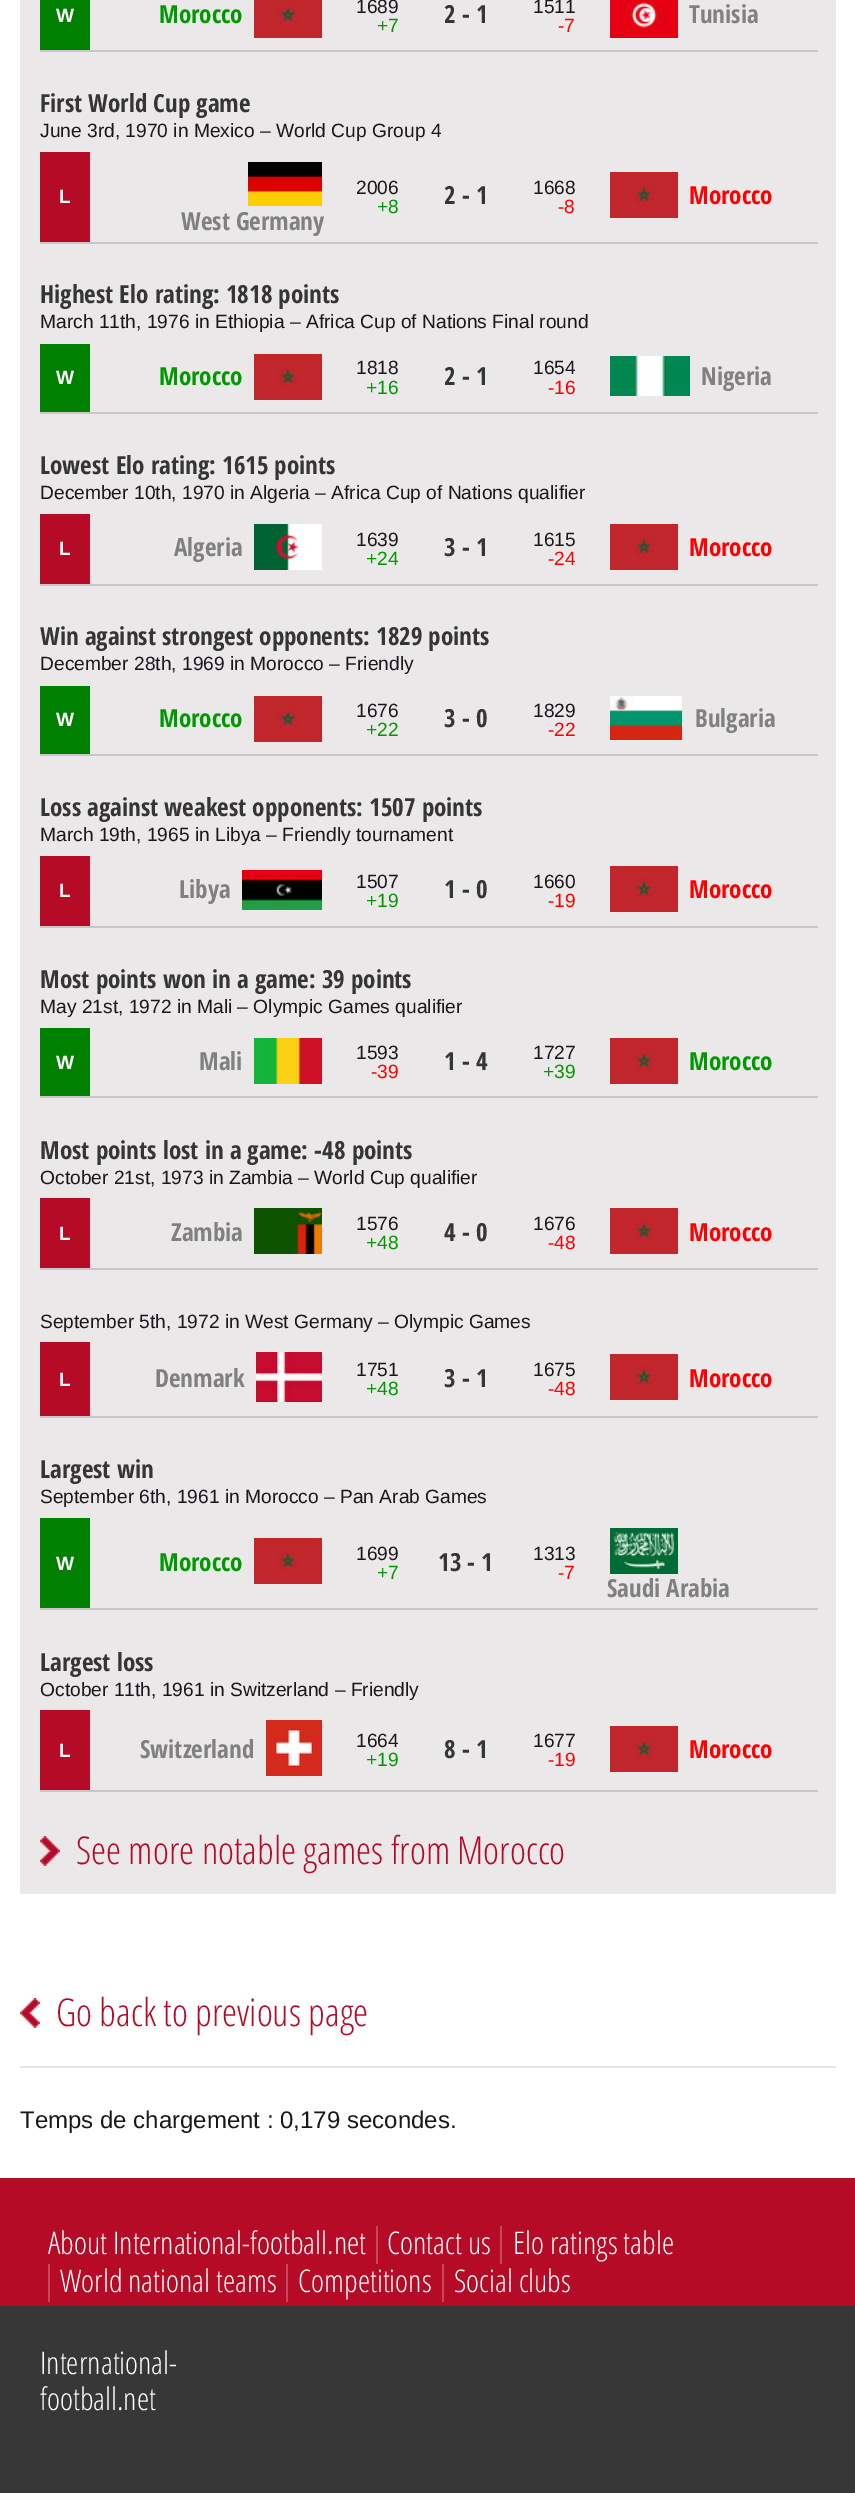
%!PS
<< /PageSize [855 2493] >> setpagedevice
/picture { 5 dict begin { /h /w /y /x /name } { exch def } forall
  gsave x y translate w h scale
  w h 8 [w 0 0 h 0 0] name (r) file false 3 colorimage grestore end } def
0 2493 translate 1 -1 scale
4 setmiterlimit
0.216 setgray
0 0 855 2493 rectfill
1 setgray
0 0 855 2178 rectfill
0.922 0.91 0.918 setrgbcolor
20 0 816 1894 rectfill
0 0.502 0 setrgbcolor
40 0 50 50 rectfill
/LiberationSans-Bold [19.2 0 0 -19.2 0 0] selectfont
1 setgray
56 22 moveto (W) show
/OpenSansCondensed-Bold [25 0 0 -25 0 0] selectfont
0 0.6 0 setrgbcolor
159 23 moveto (Morocco) show
(img1.rgb) 254 0 68 38 picture
/LiberationSans-Regular [19.2 0 0 -19.2 0 0] selectfont
0.102 0.09 0.106 setrgbcolor
356 13 moveto (1689) show
0 0.6 0 setrgbcolor
377 32 moveto (+7) show
/OpenSansCondensed-Bold [25 0 0 -25 0 0] selectfont
0.208 setgray
444 23 moveto (2 - 1) show
/LiberationSans-Regular [19.2 0 0 -19.2 0 0] selectfont
0.102 0.09 0.106 setrgbcolor
533 13 moveto (1511) show
1 0 0 setrgbcolor
558 32 moveto (-7) show
0.8 0.769 0.788 setrgbcolor
40 50 778 2 rectfill
(img2.rgb) 610 0 68 38 picture
/OpenSansCondensed-Bold [25 0 0 -25 0 0] selectfont
0.502 setgray
689 23 moveto (Tunisia) show
0.208 setgray
40 112 moveto (First World Cup game) show
/LiberationSans-Regular [19.2 0 0 -19.2 0 0] selectfont
0.102 0.09 0.106 setrgbcolor
40 137 moveto (June 3rd, 1970 in Mexico – World Cup Group 4) show
0.71 0.043 0.153 setrgbcolor
40 152 50 90 rectfill
/LiberationSans-Bold [19.2 0 0 -19.2 0 0] selectfont
1 setgray
59 203 moveto (L) show
/LiberationSans-Regular [19.2 0 0 -19.2 0 0] selectfont
0.102 0.09 0.106 setrgbcolor
356 194 moveto (2006) show
0 0.6 0 setrgbcolor
377 213 moveto (+8) show
/OpenSansCondensed-Bold [25 0 0 -25 0 0] selectfont
0.208 setgray
444 204 moveto (2 - 1) show
/LiberationSans-Regular [19.2 0 0 -19.2 0 0] selectfont
0.102 0.09 0.106 setrgbcolor
533 194 moveto (1668) show
1 0 0 setrgbcolor
558 213 moveto (-8) show
0.8 0.769 0.788 setrgbcolor
40 242 778 2 rectfill
(img3.rgb) 610 172 68 46 picture
/OpenSansCondensed-Bold [25 0 0 -25 0 0] selectfont
1 0 0 setrgbcolor
689 204 moveto (Morocco) show
(img4.rgb) 248 162 74 44 picture
0.502 setgray
181 230 moveto (West Germany) show
0.208 setgray
40 303 moveto (Highest Elo rating: 1818 points) show
/LiberationSans-Regular [19.2 0 0 -19.2 0 0] selectfont
0.102 0.09 0.106 setrgbcolor
40 328 moveto (March 11th, 1976 in Ethiopia – Africa Cup of Nations Final round) show
0 0.502 0 setrgbcolor
40 344 50 68 rectfill
/LiberationSans-Bold [19.2 0 0 -19.2 0 0] selectfont
1 setgray
56 384 moveto (W) show
/OpenSansCondensed-Bold [25 0 0 -25 0 0] selectfont
0 0.6 0 setrgbcolor
159 385 moveto (Morocco) show
(img3.rgb) 254 354 68 46 picture
/LiberationSans-Regular [19.2 0 0 -19.2 0 0] selectfont
0.102 0.09 0.106 setrgbcolor
356 374 moveto (1818) show
0 0.6 0 setrgbcolor
366 394 moveto (+16) show
/OpenSansCondensed-Bold [25 0 0 -25 0 0] selectfont
0.208 setgray
444 385 moveto (2 - 1) show
/LiberationSans-Regular [19.2 0 0 -19.2 0 0] selectfont
0.102 0.09 0.106 setrgbcolor
533 374 moveto (1654) show
1 0 0 setrgbcolor
548 394 moveto (-16) show
0.8 0.769 0.788 setrgbcolor
40 412 778 2 rectfill
(img5.rgb) 610 356 80 40 picture
/OpenSansCondensed-Bold [25 0 0 -25 0 0] selectfont
0.502 setgray
701 385 moveto (Nigeria) show
0.208 setgray
40 474 moveto (Lowest Elo rating: 1615 points) show
/LiberationSans-Regular [19.2 0 0 -19.2 0 0] selectfont
0.102 0.09 0.106 setrgbcolor
40 499 moveto (December 10th, 1970 in Algeria – Africa Cup of Nations qualifier) show
0.71 0.043 0.153 setrgbcolor
40 514 50 70 rectfill
/LiberationSans-Bold [19.2 0 0 -19.2 0 0] selectfont
1 setgray
59 555 moveto (L) show
/OpenSansCondensed-Bold [25 0 0 -25 0 0] selectfont
0.502 setgray
174 556 moveto (Algeria) show
(img6.rgb) 254 524 68 46 picture
/LiberationSans-Regular [19.2 0 0 -19.2 0 0] selectfont
0.102 0.09 0.106 setrgbcolor
356 546 moveto (1639) show
0 0.6 0 setrgbcolor
366 565 moveto (+24) show
/OpenSansCondensed-Bold [25 0 0 -25 0 0] selectfont
0.208 setgray
444 556 moveto (3 - 1) show
/LiberationSans-Regular [19.2 0 0 -19.2 0 0] selectfont
0.102 0.09 0.106 setrgbcolor
533 546 moveto (1615) show
1 0 0 setrgbcolor
548 565 moveto (-24) show
0.8 0.769 0.788 setrgbcolor
40 584 778 2 rectfill
(img3.rgb) 610 524 68 46 picture
/OpenSansCondensed-Bold [25 0 0 -25 0 0] selectfont
1 0 0 setrgbcolor
689 556 moveto (Morocco) show
0.208 setgray
40 645 moveto (Win against strongest opponents: 1829 points) show
/LiberationSans-Regular [19.2 0 0 -19.2 0 0] selectfont
0.102 0.09 0.106 setrgbcolor
40 670 moveto (December 28th, 1969 in Morocco – Friendly) show
0 0.502 0 setrgbcolor
40 686 50 68 rectfill
/LiberationSans-Bold [19.2 0 0 -19.2 0 0] selectfont
1 setgray
56 726 moveto (W) show
/OpenSansCondensed-Bold [25 0 0 -25 0 0] selectfont
0 0.6 0 setrgbcolor
159 727 moveto (Morocco) show
(img3.rgb) 254 696 68 46 picture
/LiberationSans-Regular [19.2 0 0 -19.2 0 0] selectfont
0.102 0.09 0.106 setrgbcolor
356 717 moveto (1676) show
0 0.6 0 setrgbcolor
366 736 moveto (+22) show
/OpenSansCondensed-Bold [25 0 0 -25 0 0] selectfont
0.208 setgray
444 727 moveto (3 - 0) show
/LiberationSans-Regular [19.2 0 0 -19.2 0 0] selectfont
0.102 0.09 0.106 setrgbcolor
533 717 moveto (1829) show
1 0 0 setrgbcolor
548 736 moveto (-22) show
0.8 0.769 0.788 setrgbcolor
40 754 778 2 rectfill
(img7.rgb) 610 696 72 44 picture
/OpenSansCondensed-Bold [25 0 0 -25 0 0] selectfont
0.502 setgray
695 727 moveto (Bulgaria) show
0.208 setgray
40 816 moveto (Loss against weakest opponents: 1507 points) show
/LiberationSans-Regular [19.2 0 0 -19.2 0 0] selectfont
0.102 0.09 0.106 setrgbcolor
40 841 moveto (March 19th, 1965 in Libya – Friendly tournament) show
0.71 0.043 0.153 setrgbcolor
40 856 50 70 rectfill
/LiberationSans-Bold [19.2 0 0 -19.2 0 0] selectfont
1 setgray
59 897 moveto (L) show
/OpenSansCondensed-Bold [25 0 0 -25 0 0] selectfont
0.502 setgray
179 898 moveto (Libya) show
(img8.rgb) 242 870 80 40 picture
/LiberationSans-Regular [19.2 0 0 -19.2 0 0] selectfont
0.102 0.09 0.106 setrgbcolor
356 888 moveto (1507) show
0 0.6 0 setrgbcolor
366 907 moveto (+19) show
/OpenSansCondensed-Bold [25 0 0 -25 0 0] selectfont
0.208 setgray
444 898 moveto (1 - 0) show
/LiberationSans-Regular [19.2 0 0 -19.2 0 0] selectfont
0.102 0.09 0.106 setrgbcolor
533 888 moveto (1660) show
1 0 0 setrgbcolor
548 907 moveto (-19) show
0.8 0.769 0.788 setrgbcolor
40 926 778 2 rectfill
(img3.rgb) 610 866 68 46 picture
/OpenSansCondensed-Bold [25 0 0 -25 0 0] selectfont
1 0 0 setrgbcolor
689 898 moveto (Morocco) show
0.208 setgray
40 988 moveto (Most points won in a game: 39 points) show
/LiberationSans-Regular [19.2 0 0 -19.2 0 0] selectfont
0.102 0.09 0.106 setrgbcolor
40 1013 moveto (May 21st, 1972 in Mali – Olympic Games qualifier) show
0 0.502 0 setrgbcolor
40 1028 50 68 rectfill
/LiberationSans-Bold [19.2 0 0 -19.2 0 0] selectfont
1 setgray
56 1069 moveto (W) show
/OpenSansCondensed-Bold [25 0 0 -25 0 0] selectfont
0.502 setgray
199 1070 moveto (Mali) show
(img9.rgb) 254 1038 68 46 picture
/LiberationSans-Regular [19.2 0 0 -19.2 0 0] selectfont
0.102 0.09 0.106 setrgbcolor
356 1059 moveto (1593) show
1 0 0 setrgbcolor
371 1078 moveto (-39) show
/OpenSansCondensed-Bold [25 0 0 -25 0 0] selectfont
0.208 setgray
444 1070 moveto (1 - 4) show
/LiberationSans-Regular [19.2 0 0 -19.2 0 0] selectfont
0.102 0.09 0.106 setrgbcolor
533 1059 moveto (1727) show
0 0.6 0 setrgbcolor
543 1078 moveto (+39) show
0.8 0.769 0.788 setrgbcolor
40 1096 778 2 rectfill
(img3.rgb) 610 1038 68 46 picture
/OpenSansCondensed-Bold [25 0 0 -25 0 0] selectfont
0 0.6 0 setrgbcolor
689 1070 moveto (Morocco) show
0.208 setgray
40 1159 moveto (Most points lost in a game: -48 points) show
/LiberationSans-Regular [19.2 0 0 -19.2 0 0] selectfont
0.102 0.09 0.106 setrgbcolor
40 1184 moveto (October 21st, 1973 in Zambia – World Cup qualifier) show
0.71 0.043 0.153 setrgbcolor
40 1198 50 70 rectfill
/LiberationSans-Bold [19.2 0 0 -19.2 0 0] selectfont
1 setgray
59 1240 moveto (L) show
/OpenSansCondensed-Bold [25 0 0 -25 0 0] selectfont
0.502 setgray
171 1241 moveto (Zambia) show
(img10.rgb) 254 1208 68 46 picture
/LiberationSans-Regular [19.2 0 0 -19.2 0 0] selectfont
0.102 0.09 0.106 setrgbcolor
356 1230 moveto (1576) show
0 0.6 0 setrgbcolor
366 1249 moveto (+48) show
/OpenSansCondensed-Bold [25 0 0 -25 0 0] selectfont
0.208 setgray
444 1241 moveto (4 - 0) show
/LiberationSans-Regular [19.2 0 0 -19.2 0 0] selectfont
0.102 0.09 0.106 setrgbcolor
533 1230 moveto (1676) show
1 0 0 setrgbcolor
548 1249 moveto (-48) show
0.8 0.769 0.788 setrgbcolor
40 1268 778 2 rectfill
(img3.rgb) 610 1208 68 46 picture
/OpenSansCondensed-Bold [25 0 0 -25 0 0] selectfont
1 0 0 setrgbcolor
689 1241 moveto (Morocco) show
/LiberationSans-Regular [19.2 0 0 -19.2 0 0] selectfont
0.102 0.09 0.106 setrgbcolor
40 1328 moveto (September 5th, 1972 in West Germany – Olympic Games) show
0.71 0.043 0.153 setrgbcolor
40 1342 50 74 rectfill
/LiberationSans-Bold [19.2 0 0 -19.2 0 0] selectfont
1 setgray
59 1386 moveto (L) show
/OpenSansCondensed-Bold [25 0 0 -25 0 0] selectfont
0.502 setgray
155 1387 moveto (Denmark) show
(img11.rgb) 256 1352 66 50 picture
/LiberationSans-Regular [19.2 0 0 -19.2 0 0] selectfont
0.102 0.09 0.106 setrgbcolor
356 1376 moveto (1751) show
0 0.6 0 setrgbcolor
366 1395 moveto (+48) show
/OpenSansCondensed-Bold [25 0 0 -25 0 0] selectfont
0.208 setgray
444 1387 moveto (3 - 1) show
/LiberationSans-Regular [19.2 0 0 -19.2 0 0] selectfont
0.102 0.09 0.106 setrgbcolor
533 1376 moveto (1675) show
1 0 0 setrgbcolor
548 1395 moveto (-48) show
0.8 0.769 0.788 setrgbcolor
40 1416 778 2 rectfill
(img3.rgb) 610 1354 68 46 picture
/OpenSansCondensed-Bold [25 0 0 -25 0 0] selectfont
1 0 0 setrgbcolor
689 1387 moveto (Morocco) show
0.208 setgray
40 1478 moveto (Largest win) show
/LiberationSans-Regular [19.2 0 0 -19.2 0 0] selectfont
0.102 0.09 0.106 setrgbcolor
40 1503 moveto (September 6th, 1961 in Morocco – Pan Arab Games) show
0 0.502 0 setrgbcolor
40 1518 50 90 rectfill
/LiberationSans-Bold [19.2 0 0 -19.2 0 0] selectfont
1 setgray
56 1570 moveto (W) show
/OpenSansCondensed-Bold [25 0 0 -25 0 0] selectfont
0 0.6 0 setrgbcolor
159 1571 moveto (Morocco) show
(img3.rgb) 254 1538 68 46 picture
/LiberationSans-Regular [19.2 0 0 -19.2 0 0] selectfont
0.102 0.09 0.106 setrgbcolor
356 1560 moveto (1699) show
0 0.6 0 setrgbcolor
377 1579 moveto (+7) show
/OpenSansCondensed-Bold [25 0 0 -25 0 0] selectfont
0.208 setgray
438 1571 moveto (13 - 1) show
/LiberationSans-Regular [19.2 0 0 -19.2 0 0] selectfont
0.102 0.09 0.106 setrgbcolor
533 1560 moveto (1313) show
1 0 0 setrgbcolor
558 1579 moveto (-7) show
0.8 0.769 0.788 setrgbcolor
40 1608 778 2 rectfill
(img12.rgb) 610 1528 68 46 picture
/OpenSansCondensed-Bold [25 0 0 -25 0 0] selectfont
0.502 setgray
607 1597 moveto (Saudi Arabia) show
0.208 setgray
40 1671 moveto (Largest loss) show
/LiberationSans-Regular [19.2 0 0 -19.2 0 0] selectfont
0.102 0.09 0.106 setrgbcolor
40 1696 moveto (October 11th, 1961 in Switzerland – Friendly) show
0.71 0.043 0.153 setrgbcolor
40 1710 50 80 rectfill
/LiberationSans-Bold [19.2 0 0 -19.2 0 0] selectfont
1 setgray
59 1757 moveto (L) show
/OpenSansCondensed-Bold [25 0 0 -25 0 0] selectfont
0.502 setgray
140 1758 moveto (Switzerland) show
(img13.rgb) 266 1720 56 56 picture
/LiberationSans-Regular [19.2 0 0 -19.2 0 0] selectfont
0.102 0.09 0.106 setrgbcolor
356 1747 moveto (1664) show
0 0.6 0 setrgbcolor
366 1766 moveto (+19) show
/OpenSansCondensed-Bold [25 0 0 -25 0 0] selectfont
0.208 setgray
444 1758 moveto (8 - 1) show
/LiberationSans-Regular [19.2 0 0 -19.2 0 0] selectfont
0.102 0.09 0.106 setrgbcolor
533 1747 moveto (1677) show
1 0 0 setrgbcolor
548 1766 moveto (-19) show
0.8 0.769 0.788 setrgbcolor
40 1790 778 2 rectfill
(img3.rgb) 610 1726 68 46 picture
/OpenSansCondensed-Bold [25 0 0 -25 0 0] selectfont
1 0 0 setrgbcolor
689 1758 moveto (Morocco) show
(img14.rgb) 40 1836 20 30 picture
/OpenSans-Light [38.4 0 0 -38.4 0 0] selectfont
0.71 0.043 0.153 setrgbcolor
76 1864 moveto (See more notable games from Morocco) show
(img15.rgb) 20 1998 20 30 picture
56 2026 moveto (Go back to previous page) show
0.894 setgray
20 2066 816 2 rectfill
/LiberationSans-Regular [24 0 0 -24 0 0] selectfont
0.102 0.09 0.106 setrgbcolor
20 2128 moveto (Temps de chargement : 0,179 secondes.) show
0.71 0.043 0.153 setrgbcolor
0 2178 855 128 rectfill
/OpenSans-Light [31.25 0 0 -31.25 0 0] selectfont
1 setgray
48 2254 moveto (About International-football.net) show
0.78 0.282 0.365 setrgbcolor
376 2226 2 38 rectfill
1 setgray
387 2254 moveto (Contact us) show
0.78 0.282 0.365 setrgbcolor
500 2226 2 38 rectfill
1 setgray
513 2254 moveto (Elo ratings table) show
0.78 0.282 0.365 setrgbcolor
48 2264 2 38 rectfill
1 setgray
60 2292 moveto (World national teams) show
0.78 0.282 0.365 setrgbcolor
286 2264 2 38 rectfill
1 setgray
298 2292 moveto (Competitions) show
0.78 0.282 0.365 setrgbcolor
442 2264 2 38 rectfill
1 setgray
454 2292 moveto (Social clubs) show
40 2374 moveto (International-) show
40 2410 moveto (football.net) show
showpage
